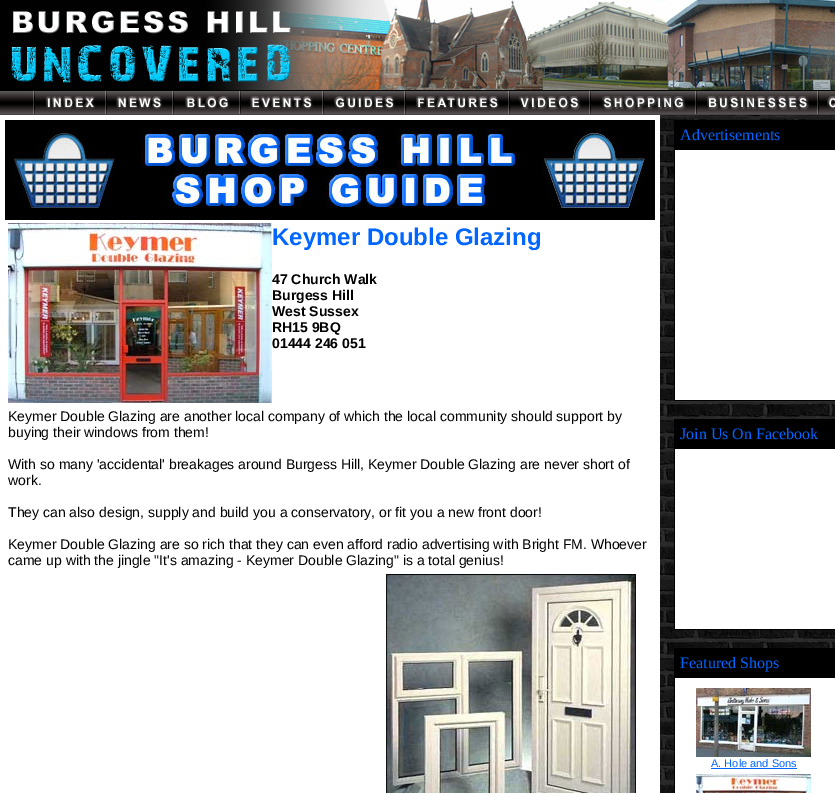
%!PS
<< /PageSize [835 793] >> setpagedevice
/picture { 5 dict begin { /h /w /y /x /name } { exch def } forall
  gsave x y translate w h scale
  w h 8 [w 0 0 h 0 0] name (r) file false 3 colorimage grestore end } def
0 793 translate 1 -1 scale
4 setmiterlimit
0 setgray
0 0 835 793 rectfill
(img1.rgb) 8 0 827 90 picture
(img2.rgb) 0 91 835 24 picture
(img3.rgb) 33 91 2 23 picture
(img4.rgb) 46 91 61 23 picture
(img5.rgb) 116 91 58 23 picture
(img6.rgb) 185 91 56 23 picture
(img7.rgb) 250 91 74 23 picture
(img8.rgb) 334 91 72 23 picture
(img9.rgb) 416 91 94 23 picture
(img10.rgb) 518 91 73 23 picture
(img11.rgb) 602 91 95 23 picture
(img12.rgb) 707 91 112 23 picture
(img13.rgb) 827 96 8 13 picture
1 setgray
0 115 660 678 rectfill
0 setgray
5 120 650 100 rectfill
(img14.rgb) 13 128 632 80 picture
(img15.rgb) 8 223 264 180 picture
/LiberationSans-Bold [24 0 0 -24 0 0] selectfont
0 0.4 1 setrgbcolor
272 245 moveto (Keymer Double Glazing) show
/LiberationSans-Bold [14 0 0 -14 0 0] selectfont
0 setgray
272 284 moveto (47 Church Walk) show
272 300 moveto (Burgess Hill) show
272 316 moveto (West Sussex) show
272 332 moveto (RH15 9BQ) show
272 348 moveto (01444 246 051) show
/LiberationSans-Regular [14 0 0 -14 0 0] selectfont
8 421 moveto (Keymer Double Glazing are another local company of which the local community should support by) show
8 437 moveto (buying their windows from them!) show
8 469 moveto (With so many 'accidental' breakages around Burgess Hill, Keymer Double Glazing are never short of) show
8 485 moveto (work.) show
8 517 moveto (They can also design, supply and build you a conservatory, or fit you a new front door!) show
8 549 moveto (Keymer Double Glazing are so rich that they can even afford radio advertising with Bright FM. Whoever) show
8 565 moveto (came up with the jingle "It's amazing - Keymer Double Glazing" is a total genius!) show
(img16.rgb) 386 574 250 219 picture
(img17.rgb) 660 115 175 678 picture
674 120 161 281 rectfill
/LiberationSerif-Regular [16 0 0 -16 0 0] selectfont
0 0.4 1 setrgbcolor
680 140 moveto (Advertisements) show
1 setgray
675 150 160 250 rectfill
0 setgray
674 419 161 211 rectfill
0 0.4 1 setrgbcolor
680 439 moveto (Join Us On Facebook) show
1 setgray
675 449 160 180 rectfill
0 setgray
674 648 161 145 rectfill
0 0.4 1 setrgbcolor
680 668 moveto (Featured Shops) show
1 setgray
675 678 160 115 rectfill
(img18.rgb) 696 688 115 69 picture
/LiberationSans-Regular [11 0 0 -11 0 0] selectfont
0 0.4 1 setrgbcolor
711 767 moveto (A. Hole and Sons) show
711 768 86 1 rectfill
(img19.rgb) 696 774 115 19 picture
showpage
